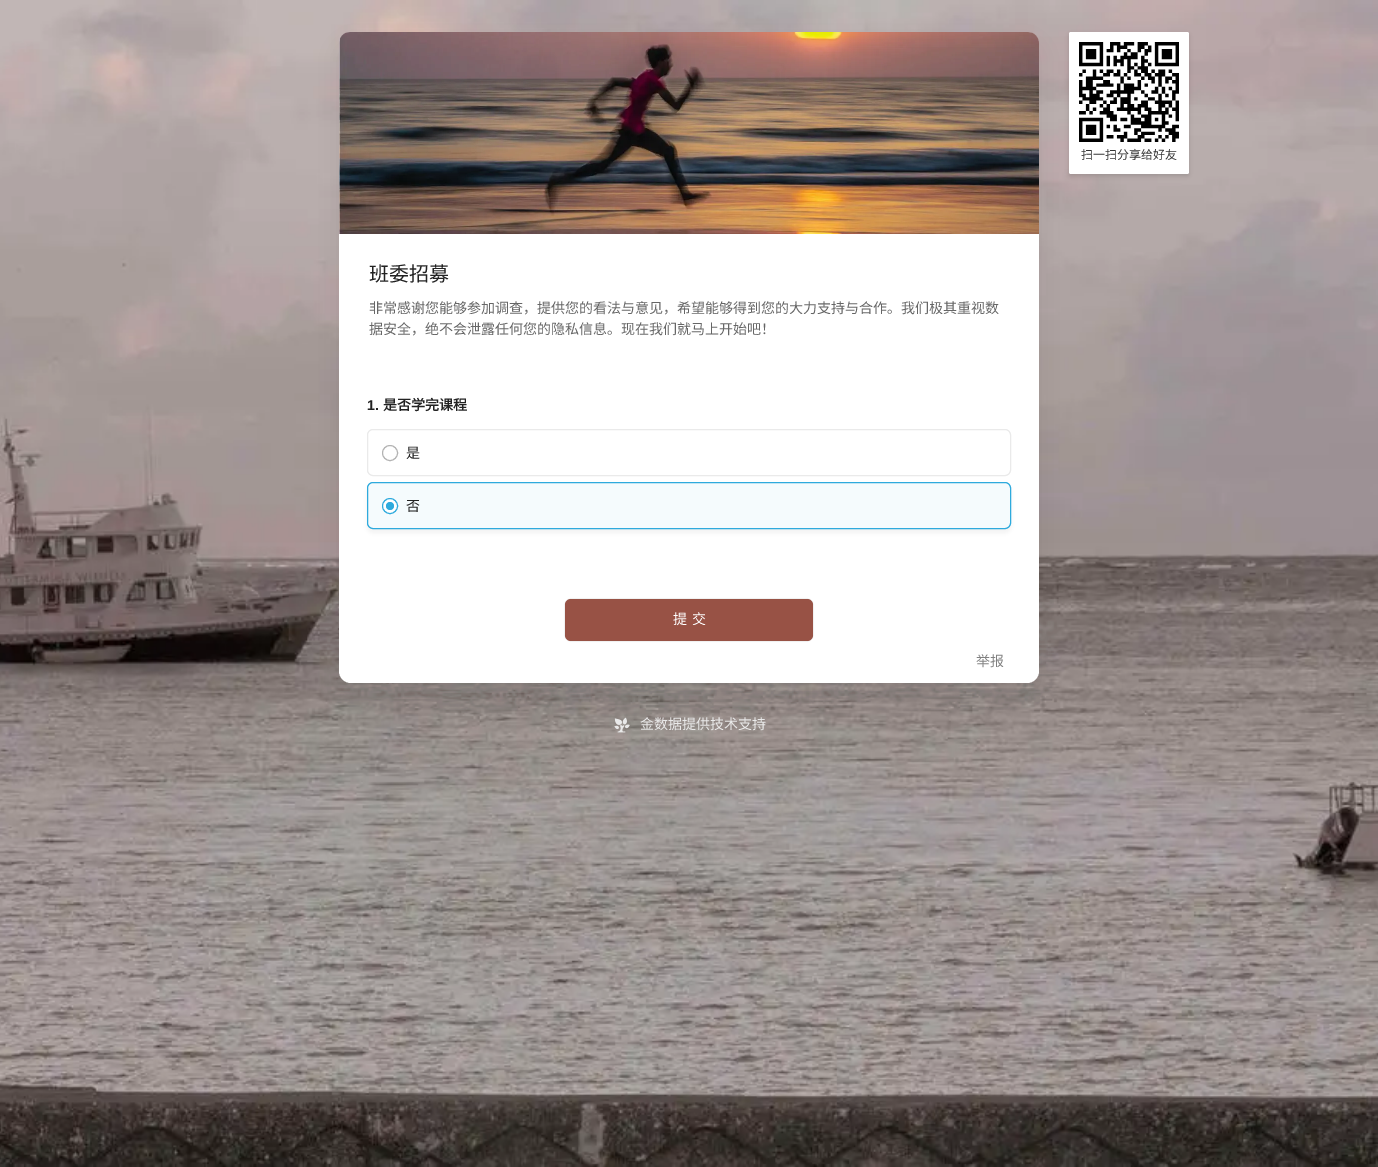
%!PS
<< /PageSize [1378 1167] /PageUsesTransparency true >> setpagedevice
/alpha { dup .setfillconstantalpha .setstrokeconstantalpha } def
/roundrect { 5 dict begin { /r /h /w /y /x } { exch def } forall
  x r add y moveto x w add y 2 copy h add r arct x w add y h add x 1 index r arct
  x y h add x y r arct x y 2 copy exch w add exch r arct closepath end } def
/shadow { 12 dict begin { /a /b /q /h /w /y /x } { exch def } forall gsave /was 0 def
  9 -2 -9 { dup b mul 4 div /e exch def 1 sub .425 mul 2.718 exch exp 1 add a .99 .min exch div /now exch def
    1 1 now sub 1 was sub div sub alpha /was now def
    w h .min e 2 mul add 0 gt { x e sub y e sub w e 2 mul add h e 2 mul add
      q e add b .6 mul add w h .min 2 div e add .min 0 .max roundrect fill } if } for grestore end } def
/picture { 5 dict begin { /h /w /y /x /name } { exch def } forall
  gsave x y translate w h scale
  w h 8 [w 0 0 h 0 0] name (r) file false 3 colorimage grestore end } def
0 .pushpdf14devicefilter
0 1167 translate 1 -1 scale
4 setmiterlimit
1 setgray
0 0 1378 1167 rectfill
(img1.rgb) 0 0 1378 1167 picture
0 setgray
339 44 700 651 12 12 0.05 shadow
1 setgray
339 32 700 651 12 roundrect fill
(img2.rgb) 339 32 700 202 picture
0 setgray
1069 34 120 142 2 2 0.12 shadow
1 setgray
1069 32 120 142 2 roundrect fill
(img3.rgb) 1079 42 100 100 picture
/NotoSansCJKSC-Regular [12 0 0 -12 0 0] selectfont
0.2 setgray
1081 159 moveto (扫一扫分享给好友) show
/NotoSansCJKSC-Regular [20 0 0 -20 0 0] selectfont
0.133 setgray
369 281 moveto (班委招募) show
/NotoSansCJKSC-Regular [14 0 0 -14 0 0] selectfont
0.4 setgray
369 313 moveto (非常感谢您能够参加调查，提供您的看法与意见，希望能够得到您的大力支持与合作。我们极其重视数) show
369 334 moveto (据安全，绝不会泄露任何您的隐私信息。现在我们就马上开始吧！) show
/LiberationSans-Bold [14 0 0 -14 0 0] selectfont
0.133 setgray
367 410 moveto (1.) show
/NotoSansCJKSC-Bold [14 0 0 -14 0 0] selectfont
383 410 moveto (是否学完课程) show
0.918 setgray
367.5 429.5 643 46 5.5 roundrect stroke
0.702 setgray
newpath 390 453 7.5 0 360 arc closepath stroke
/NotoSansCJKSC-Regular [14 0 0 -14 0 0] selectfont
0.133 setgray
406 458 moveto (是) show
0.2 setgray
367 486 644 47 6 2 0.05 shadow
0.961 0.984 0.992 setrgbcolor
367.5 482.5 643 46 5.5 roundrect gsave fill grestore
0.18 0.667 0.867 setrgbcolor
stroke
1 setgray
newpath 390 506 7.5 0 360 arc closepath gsave fill grestore
0.18 0.667 0.867 setrgbcolor
stroke
newpath 390 506 4 0 360 arc closepath fill
0.133 setgray
406 511 moveto (否) show
0 setgray
565 599 248 42 6 0.5 0.2 shadow
0.596 0.322 0.271 setrgbcolor
565 599 248 42 6 roundrect fill
1 setgray
673 624 moveto 5 0 (提交) ashow
0.502 setgray
976 666 moveto (举报) show
(img4.rgb) 614 717 16 16 picture
0.914 setgray
640 729 moveto (金数据提供技术支持) show
.poppdf14devicefilter showpage
